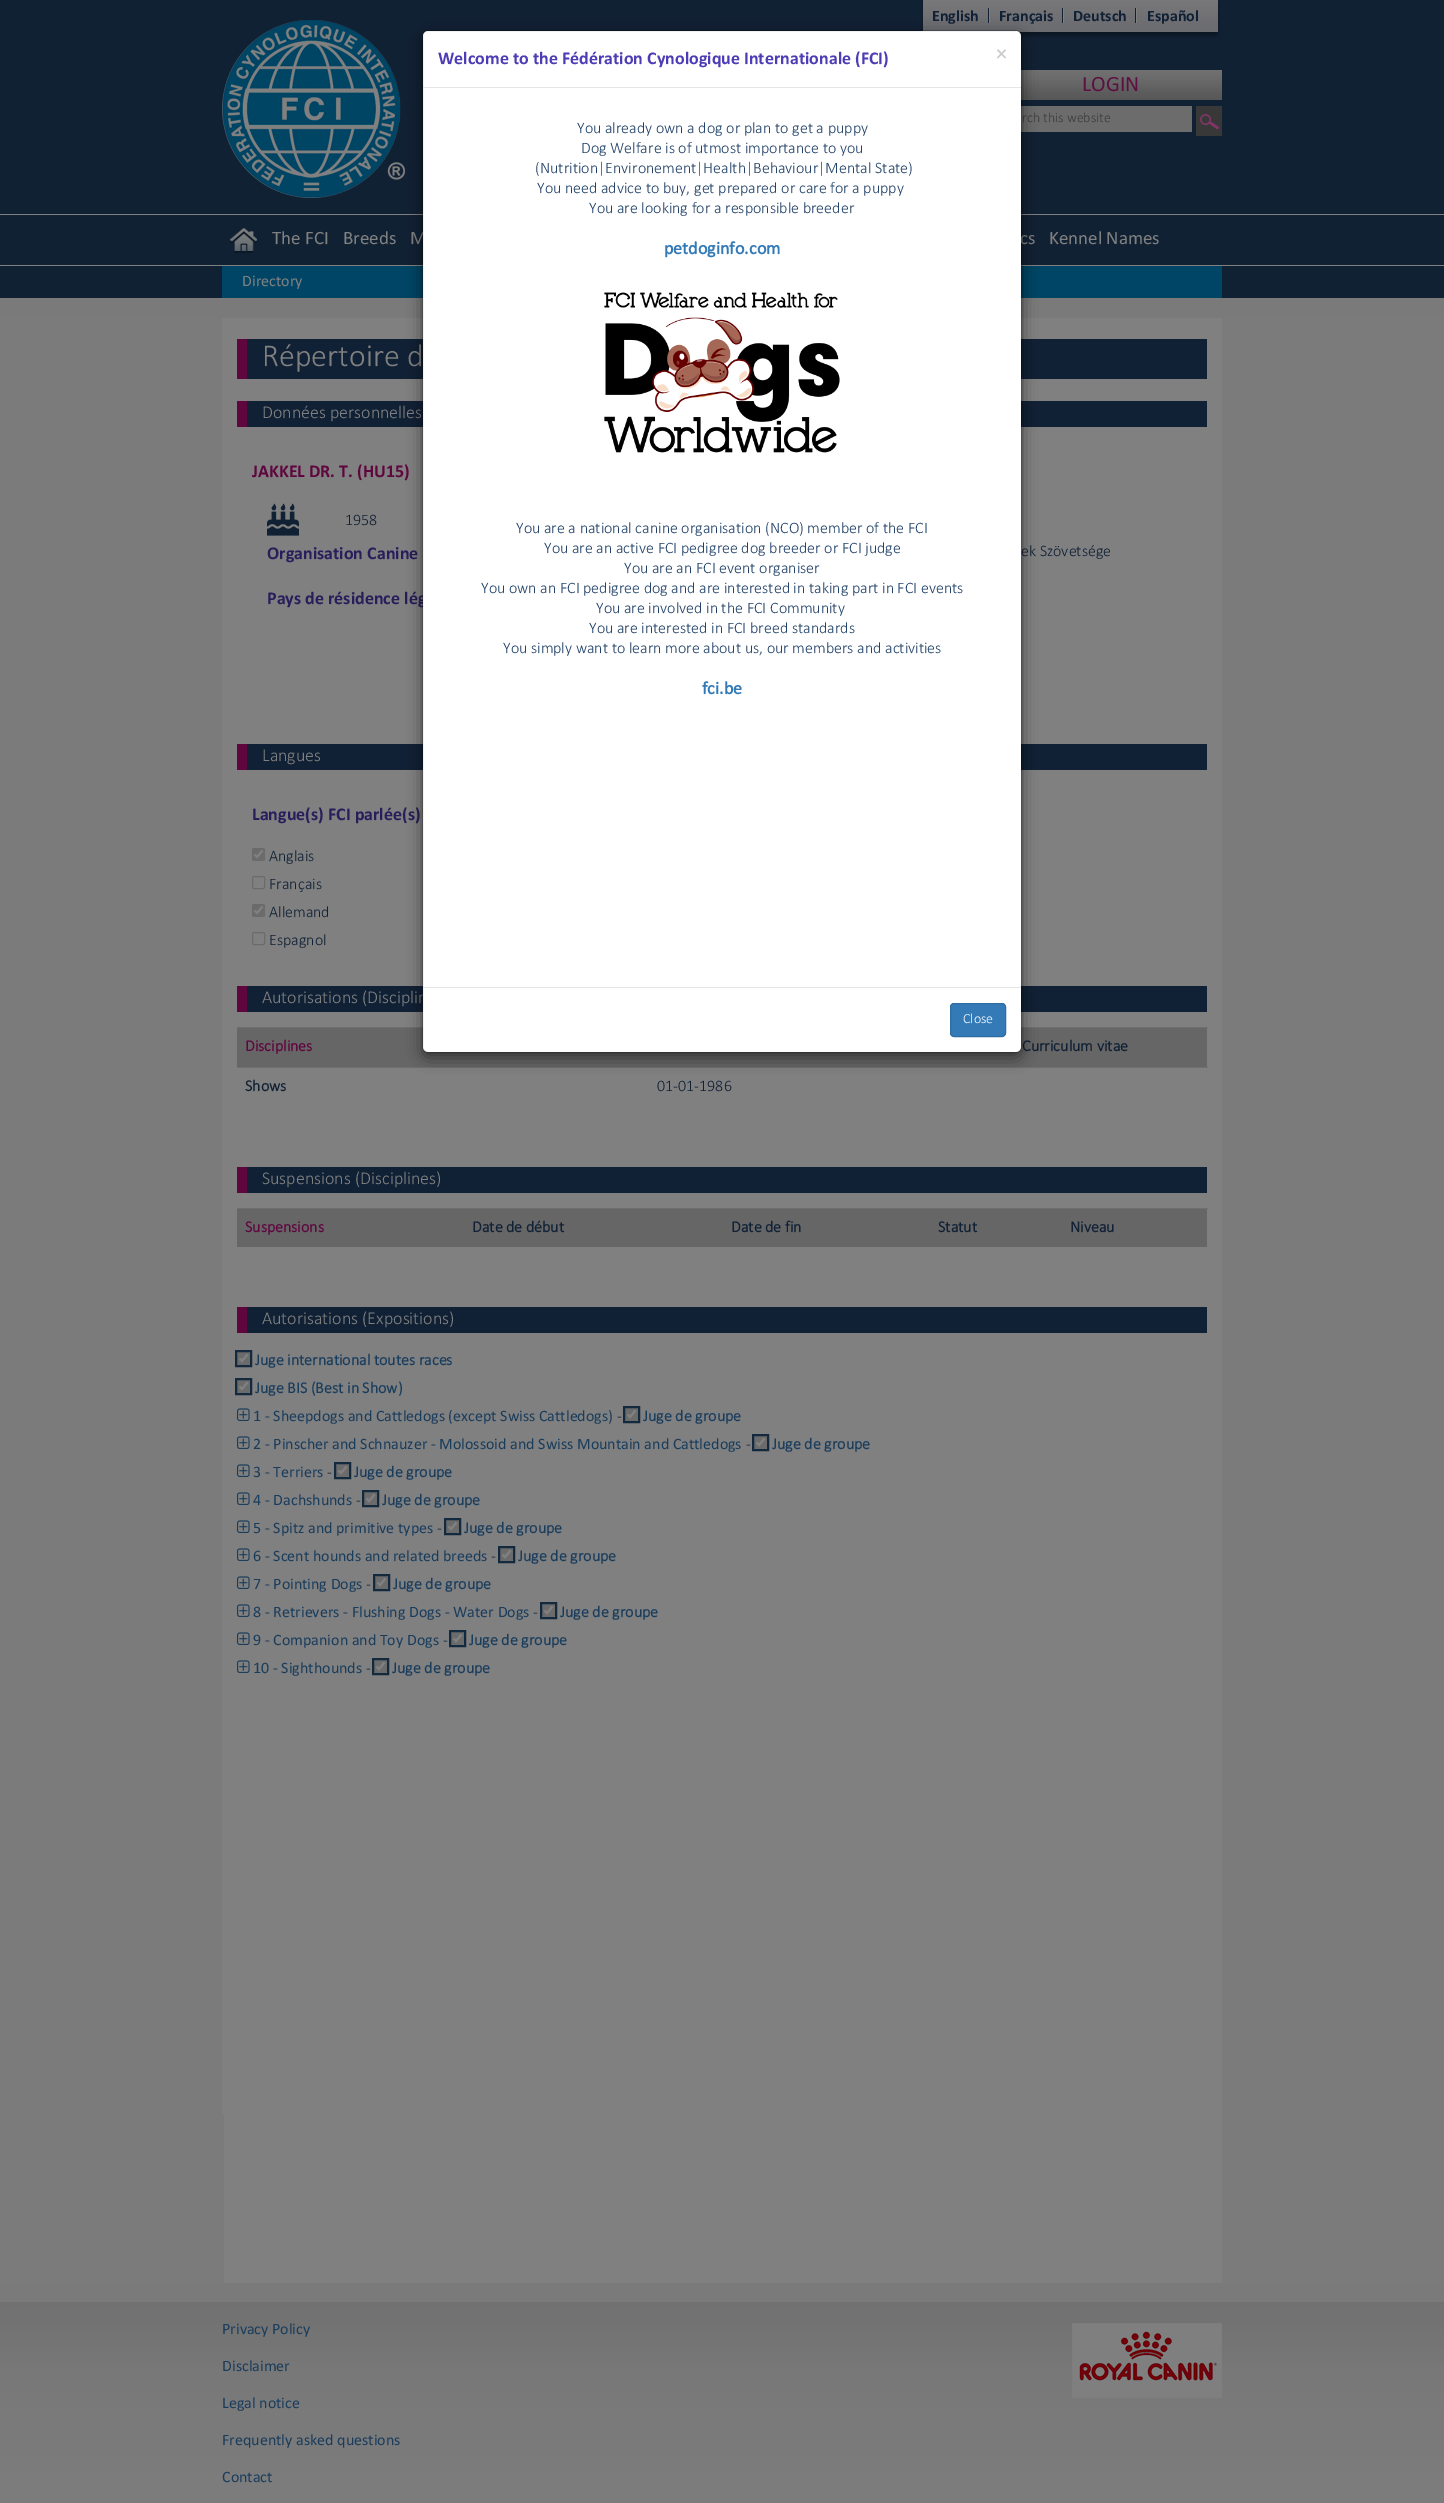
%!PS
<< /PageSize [1444 2503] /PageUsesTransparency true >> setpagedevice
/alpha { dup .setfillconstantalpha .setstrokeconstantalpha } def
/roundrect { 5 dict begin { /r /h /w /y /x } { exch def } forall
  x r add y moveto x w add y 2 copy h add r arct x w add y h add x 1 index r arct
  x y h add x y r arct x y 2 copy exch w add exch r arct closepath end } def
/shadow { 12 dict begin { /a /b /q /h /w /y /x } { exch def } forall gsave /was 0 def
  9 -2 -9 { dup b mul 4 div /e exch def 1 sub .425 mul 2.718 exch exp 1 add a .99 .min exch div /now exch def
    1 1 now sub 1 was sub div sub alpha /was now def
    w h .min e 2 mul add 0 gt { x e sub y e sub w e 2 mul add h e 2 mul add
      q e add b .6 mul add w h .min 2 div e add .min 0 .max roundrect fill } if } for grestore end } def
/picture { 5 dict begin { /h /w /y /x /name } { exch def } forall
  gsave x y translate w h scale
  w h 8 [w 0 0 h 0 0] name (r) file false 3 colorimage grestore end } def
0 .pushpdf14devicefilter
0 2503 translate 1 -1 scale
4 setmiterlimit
0.482 setgray
0 0 1444 2503 rectfill
0.502 setgray
224 2114 998 169 rectfill
(img1.rgb) 0 0 1444 318 picture
(img2.rgb) 920 0 301 39 picture
/Calibri-Bold [16 0 0 -16 0 0] selectfont
0.067 0.129 0.208 setrgbcolor
932 21 moveto (English) show
999 21 moveto (Français) show
1073 21 moveto (Deutsch) show
1147 21 moveto (Español) show
(img3.rgb) 222 20 183 178 picture
(img4.rgb) 1021 70 201 30 picture
/Calibri-Regular [22 0 0 -22 0 0] selectfont
0.365 0.067 0.259 setrgbcolor
1082 91 moveto (LOGIN) show
0.424 setgray
1021 106 171 26 rectfill
/Calibri-Light [14 0 0 -14 0 0] selectfont
0.231 setgray
1022 122 moveto (rch this website) show
(img5.rgb) 1196 106 26 30 picture
(img6.rgb) 229 228 29 26 picture
/Calibri-Regular [19 0 0 -19 0 0] selectfont
0.502 setgray
272 244 moveto (The FCI) show
343 244 moveto (Breeds) show
410 244 moveto (M) show
1020 244 moveto (cs) show
1049 244 moveto (Kennel Names) show
0 0.271 0.396 setrgbcolor
222 266 1000 32 rectfill
/Calibri-Regular [16 0 0 -16 0 0] selectfont
0.502 setgray
242 286 moveto (Directory) show
222 318 1000 1796 rectfill
0.067 0.129 0.208 setrgbcolor
247 339 960 40 rectfill
0.373 0.024 0.247 setrgbcolor
237 339 10 40 rectfill
/Calibri-Light [32 0 0 -32 0 0] selectfont
0.502 setgray
262 366 moveto (Répertoire d) show
0.067 0.129 0.208 setrgbcolor
247 401 960 26 rectfill
0.373 0.024 0.247 setrgbcolor
237 401 10 26 rectfill
/Calibri-Light [18 0 0 -18 0 0] selectfont
0.502 setgray
262 418 moveto (Données personnelles) show
/Calibri-Bold [18 0 0 -18 0 0] selectfont
0.373 0.024 0.247 setrgbcolor
252 477 moveto (JAKKEL DR. T. \(HU15\)) show
(img7.rgb) 267 503 32 33 picture
/Calibri-Light [16 0 0 -16 0 0] selectfont
0.067 0.129 0.208 setrgbcolor
345 525 moveto (1958) show
/Calibri-Bold [18 0 0 -18 0 0] selectfont
0.153 0.118 0.357 setrgbcolor
267 559 moveto (Organisation Canine) show
/Calibri-Light [16 0 0 -16 0 0] selectfont
0.067 0.129 0.208 setrgbcolor
1021 556 moveto (ek Szövetsége) show
/Calibri-Bold [18 0 0 -18 0 0] selectfont
0.153 0.118 0.357 setrgbcolor
267 604 moveto (Pays de résidence lég) show
0.067 0.129 0.208 setrgbcolor
247 744 960 26 rectfill
0.373 0.024 0.247 setrgbcolor
237 744 10 26 rectfill
/Calibri-Light [18 0 0 -18 0 0] selectfont
0.502 setgray
262 761 moveto (Langues) show
/Calibri-Bold [18 0 0 -18 0 0] selectfont
0.153 0.118 0.357 setrgbcolor
252 820 moveto (Langue\(s\) FCI parlée\(s\)) show
0.42 setgray
252 848 13 13 2 roundrect fill
0.502 setgray
2.1 setlinewidth
newpath 254.5 854.5 moveto 257 857 lineto 262.5 850.5 lineto stroke
/Calibri-Light [16 0 0 -16 0 0] selectfont
0.067 0.129 0.208 setrgbcolor
269 861 moveto (Anglais) show
0.42 setgray
1 setlinewidth
252.5 876.5 12 12 1.5 roundrect stroke
0.067 0.129 0.208 setrgbcolor
269 889 moveto (Français) show
0.42 setgray
252 904 13 13 2 roundrect fill
0.502 setgray
2.1 setlinewidth
newpath 254.5 910.5 moveto 257 913 lineto 262.5 906.5 lineto stroke
0.067 0.129 0.208 setrgbcolor
269 917 moveto (Allemand) show
0.42 setgray
1 setlinewidth
252.5 932.5 12 12 1.5 roundrect stroke
0.067 0.129 0.208 setrgbcolor
269 945 moveto (Espagnol) show
247 986 960 26 rectfill
0.373 0.024 0.247 setrgbcolor
237 986 10 26 rectfill
/Calibri-Light [18 0 0 -18 0 0] selectfont
0.502 setgray
262 1003 moveto (Autorisations \(Disciplin) show
0.4 setgray
237 1028 412 39 rectfill
0.435 setgray
237 1027 186 1 rectfill
/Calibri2-Bold [16 0 0 -16 0 0] selectfont
0.373 0.024 0.247 setrgbcolor
245 1051 moveto (Disciplines) show
0.4 setgray
1014 1028 193 39 rectfill
0.435 setgray
1013 1027 195 1 rectfill
0.067 0.129 0.208 setrgbcolor
1022 1051 moveto (Curriculum vitae) show
0.4 setgray
649 1052 365 15 rectfill
0.435 setgray
237 1067 971 1 rectfill
0.067 0.129 0.208 setrgbcolor
245 1091 moveto (Shows) show
/Calibri-Light [16 0 0 -16 0 0] selectfont
657 1091 moveto (01-01-1986) show
247 1167 960 26 rectfill
0.373 0.024 0.247 setrgbcolor
237 1167 10 26 rectfill
/Calibri-Light [18 0 0 -18 0 0] selectfont
0.502 setgray
262 1184 moveto (Suspensions \(Disciplines\)) show
0.4 setgray
237 1209 970 38 rectfill
/Calibri2-Bold [16 0 0 -16 0 0] selectfont
0.373 0.024 0.247 setrgbcolor
245 1232 moveto (Suspensions) show
0.067 0.129 0.208 setrgbcolor
472 1232 moveto (Date de début) show
731 1232 moveto (Date de fin) show
938 1232 moveto (Statut) show
0.435 setgray
237 1208 971 1 rectfill
0.067 0.129 0.208 setrgbcolor
1070 1232 moveto (Niveau) show
247 1307 960 26 rectfill
0.373 0.024 0.247 setrgbcolor
237 1307 10 26 rectfill
/Calibri-Light [18 0 0 -18 0 0] selectfont
0.502 setgray
262 1324 moveto (Autorisations \(Expositions\)) show
0.42 setgray
237 1352 13 13 2 roundrect fill
0.502 setgray
2.1 setlinewidth
newpath 239.5 1358.5 moveto 242 1361 lineto 247.5 1354.5 lineto stroke
0.071 0.161 0.243 setrgbcolor
2 setlinewidth
236 1351 15 15 rectstroke
/Calibri2-Bold [16 0 0 -16 0 0] selectfont
0.102 0.239 0.361 setrgbcolor
255 1365 moveto (Juge international toutes races) show
0.42 setgray
237 1380 13 13 2 roundrect fill
0.502 setgray
2.1 setlinewidth
newpath 239.5 1386.5 moveto 242 1389 lineto 247.5 1382.5 lineto stroke
0.071 0.161 0.243 setrgbcolor
2 setlinewidth
236 1379 15 15 rectstroke
0.102 0.239 0.361 setrgbcolor
255 1393 moveto (Juge BIS \(Best in Show\)) show
(img8.rgb) 237 1408 13 13 picture
/Calibri-Regular [16 0 0 -16 0 0] selectfont
253 1421 moveto (1 - Sheepdogs and Cattledogs \(except Swiss Cattledogs\)) show
/Calibri-Light [16 0 0 -16 0 0] selectfont
0.067 0.129 0.208 setrgbcolor
617 1421 moveto (-) show
0.42 setgray
625 1408 13 13 2 roundrect fill
0.502 setgray
2.1 setlinewidth
newpath 627.5 1414.5 moveto 630 1417 lineto 635.5 1410.5 lineto stroke
0.071 0.161 0.243 setrgbcolor
2 setlinewidth
624 1407 15 15 rectstroke
/Calibri2-Bold [16 0 0 -16 0 0] selectfont
0.102 0.239 0.361 setrgbcolor
643 1421 moveto (Juge de groupe) show
(img8.rgb) 237 1436 13 13 picture
/Calibri-Regular [16 0 0 -16 0 0] selectfont
253 1449 moveto (2 - Pinscher and Schnauzer - Molossoid and Swiss Mountain and Cattledogs) show
/Calibri-Light [16 0 0 -16 0 0] selectfont
0.067 0.129 0.208 setrgbcolor
746 1449 moveto (-) show
0.42 setgray
754 1436 13 13 2 roundrect fill
0.502 setgray
2.1 setlinewidth
newpath 756.5 1442.5 moveto 759 1445 lineto 764.5 1438.5 lineto stroke
0.071 0.161 0.243 setrgbcolor
2 setlinewidth
753 1435 15 15 rectstroke
/Calibri2-Bold [16 0 0 -16 0 0] selectfont
0.102 0.239 0.361 setrgbcolor
772 1449 moveto (Juge de groupe) show
(img8.rgb) 237 1464 13 13 picture
/Calibri-Regular [16 0 0 -16 0 0] selectfont
253 1477 moveto (3 - Terriers) show
/Calibri-Light [16 0 0 -16 0 0] selectfont
0.067 0.129 0.208 setrgbcolor
327 1477 moveto (-) show
0.42 setgray
336 1464 13 13 2 roundrect fill
0.502 setgray
2.1 setlinewidth
newpath 338.5 1470.5 moveto 341 1473 lineto 346.5 1466.5 lineto stroke
0.071 0.161 0.243 setrgbcolor
2 setlinewidth
335 1463 15 15 rectstroke
/Calibri2-Bold [16 0 0 -16 0 0] selectfont
0.102 0.239 0.361 setrgbcolor
354 1477 moveto (Juge de groupe) show
(img8.rgb) 237 1492 13 13 picture
/Calibri-Regular [16 0 0 -16 0 0] selectfont
253 1505 moveto (4 - Dachshunds) show
/Calibri-Light [16 0 0 -16 0 0] selectfont
0.067 0.129 0.208 setrgbcolor
356 1505 moveto (-) show
0.42 setgray
364 1492 13 13 2 roundrect fill
0.502 setgray
2.1 setlinewidth
newpath 366.5 1498.5 moveto 369 1501 lineto 374.5 1494.5 lineto stroke
0.071 0.161 0.243 setrgbcolor
2 setlinewidth
363 1491 15 15 rectstroke
/Calibri2-Bold [16 0 0 -16 0 0] selectfont
0.102 0.239 0.361 setrgbcolor
382 1505 moveto (Juge de groupe) show
(img8.rgb) 237 1520 13 13 picture
/Calibri-Regular [16 0 0 -16 0 0] selectfont
253 1533 moveto (5 - Spitz and primitive types) show
/Calibri-Light [16 0 0 -16 0 0] selectfont
0.067 0.129 0.208 setrgbcolor
437 1533 moveto (-) show
0.42 setgray
446 1520 13 13 2 roundrect fill
0.502 setgray
2.1 setlinewidth
newpath 448.5 1526.5 moveto 451 1529 lineto 456.5 1522.5 lineto stroke
0.071 0.161 0.243 setrgbcolor
2 setlinewidth
445 1519 15 15 rectstroke
/Calibri2-Bold [16 0 0 -16 0 0] selectfont
0.102 0.239 0.361 setrgbcolor
464 1533 moveto (Juge de groupe) show
(img8.rgb) 237 1548 13 13 picture
/Calibri-Regular [16 0 0 -16 0 0] selectfont
253 1561 moveto (6 - Scent hounds and related breeds) show
/Calibri-Light [16 0 0 -16 0 0] selectfont
0.067 0.129 0.208 setrgbcolor
491 1561 moveto (-) show
0.42 setgray
500 1548 13 13 2 roundrect fill
0.502 setgray
2.1 setlinewidth
newpath 502.5 1554.5 moveto 505 1557 lineto 510.5 1550.5 lineto stroke
0.071 0.161 0.243 setrgbcolor
2 setlinewidth
499 1547 15 15 rectstroke
/Calibri2-Bold [16 0 0 -16 0 0] selectfont
0.102 0.239 0.361 setrgbcolor
518 1561 moveto (Juge de groupe) show
(img8.rgb) 237 1576 13 13 picture
/Calibri-Regular [16 0 0 -16 0 0] selectfont
253 1589 moveto (7 - Pointing Dogs) show
/Calibri-Light [16 0 0 -16 0 0] selectfont
0.067 0.129 0.208 setrgbcolor
366 1589 moveto (-) show
0.42 setgray
375 1576 13 13 2 roundrect fill
0.502 setgray
2.1 setlinewidth
newpath 377.5 1582.5 moveto 380 1585 lineto 385.5 1578.5 lineto stroke
0.071 0.161 0.243 setrgbcolor
2 setlinewidth
374 1575 15 15 rectstroke
/Calibri2-Bold [16 0 0 -16 0 0] selectfont
0.102 0.239 0.361 setrgbcolor
393 1589 moveto (Juge de groupe) show
(img8.rgb) 237 1604 13 13 picture
/Calibri-Regular [16 0 0 -16 0 0] selectfont
253 1617 moveto (8 - Retrievers - Flushing Dogs - Water Dogs) show
/Calibri-Light [16 0 0 -16 0 0] selectfont
0.067 0.129 0.208 setrgbcolor
533 1617 moveto (-) show
0.42 setgray
542 1604 13 13 2 roundrect fill
0.502 setgray
2.1 setlinewidth
newpath 544.5 1610.5 moveto 547 1613 lineto 552.5 1606.5 lineto stroke
0.071 0.161 0.243 setrgbcolor
2 setlinewidth
541 1603 15 15 rectstroke
/Calibri2-Bold [16 0 0 -16 0 0] selectfont
0.102 0.239 0.361 setrgbcolor
560 1617 moveto (Juge de groupe) show
(img8.rgb) 237 1632 13 13 picture
/Calibri-Regular [16 0 0 -16 0 0] selectfont
253 1645 moveto (9 - Companion and Toy Dogs) show
/Calibri-Light [16 0 0 -16 0 0] selectfont
0.067 0.129 0.208 setrgbcolor
443 1645 moveto (-) show
0.42 setgray
451 1632 13 13 2 roundrect fill
0.502 setgray
2.1 setlinewidth
newpath 453.5 1638.5 moveto 456 1641 lineto 461.5 1634.5 lineto stroke
0.071 0.161 0.243 setrgbcolor
2 setlinewidth
450 1631 15 15 rectstroke
/Calibri2-Bold [16 0 0 -16 0 0] selectfont
0.102 0.239 0.361 setrgbcolor
469 1645 moveto (Juge de groupe) show
(img8.rgb) 237 1660 13 13 picture
/Calibri-Regular [16 0 0 -16 0 0] selectfont
253 1673 moveto (10 - Sighthounds) show
/Calibri-Light [16 0 0 -16 0 0] selectfont
0.067 0.129 0.208 setrgbcolor
366 1673 moveto (-) show
0.42 setgray
374 1660 13 13 2 roundrect fill
0.502 setgray
2.1 setlinewidth
newpath 376.5 1666.5 moveto 379 1669 lineto 384.5 1662.5 lineto stroke
0.071 0.161 0.243 setrgbcolor
2 setlinewidth
373 1659 15 15 rectstroke
/Calibri2-Bold [16 0 0 -16 0 0] selectfont
0.102 0.239 0.361 setrgbcolor
392 1673 moveto (Juge de groupe) show
(img9.rgb) 0 2283 1444 220 picture
/Calibri-Regular [16 0 0 -16 0 0] selectfont
222 2334 moveto (Privacy Policy) show
222 2371 moveto (Disclaimer) show
222 2408 moveto (Legal notice) show
222 2445 moveto (Frequently asked questions) show
222 2482 moveto (Contact) show
(img10.rgb) 1072 2323 150 75 picture
0 setgray
422 35 600 1023 6 7.5 0.5 shadow
1 setgray
423 31 598 1021 5 roundrect fill
0.2 alpha
0 setgray
1 setlinewidth
422.5 30.5 599 1022 5.5 roundrect stroke
1 alpha
0.898 setgray
423 87 598 1 rectfill
/Calibri-Bold [18 0 0 -18 0 0] selectfont
0.302 0.235 0.71 setrgbcolor
438 64 moveto (Welcome to the Fédération Cynologique Internationale \(FCI\)) show
/Calibri2-Bold [21 0 0 -21 0 0] selectfont
0.8 setgray
996 60 moveto (×) show
/Calibri-Light [16 0 0 -16 0 0] selectfont
0.133 0.259 0.412 setrgbcolor
577 133 moveto (You already own a dog or plan to get a puppy) show
581 153 moveto (Dog Welfare is of utmost importance to you) show
535 173 moveto (\(Nutrition|Environement|Health|Behaviour|Mental State\)) show
537 193 moveto (You need advice to buy, get prepared or care for a puppy) show
589 213 moveto (You are looking for a responsible breeder) show
/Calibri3-Bold [18 0 0 -18 0 0] selectfont
0.2 0.478 0.718 setrgbcolor
664 254 moveto (petdoginfo.com) show
(img11.rgb) 604 292 236 161 picture
/Calibri-Light [16 0 0 -16 0 0] selectfont
0.133 0.259 0.412 setrgbcolor
516 533 moveto (You are a national canine organisation \(NCO\) member of the FCI) show
544 553 moveto (You are an active FCI pedigree dog breeder or FCI judge) show
624 573 moveto (You are an FCI event organiser) show
481 593 moveto (You own an FCI pedigree dog and are interested in taking part in FCI events) show
596 613 moveto (You are involved in the FCI Community) show
589 633 moveto (You are interested in FCI breed standards) show
503 653 moveto (You simply want to learn more about us, our members and activities) show
/Calibri3-Bold [18 0 0 -18 0 0] selectfont
0.2 0.478 0.718 setrgbcolor
702 694 moveto (fci.be) show
0.898 setgray
423 987 598 1 rectfill
0.2 0.478 0.718 setrgbcolor
950.5 1003.5 55 33 3.5 roundrect gsave fill grestore
0.18 0.427 0.643 setrgbcolor
stroke
/Calibri-Light [14 0 0 -14 0 0] selectfont
1 setgray
963 1023 moveto (Close) show
.poppdf14devicefilter showpage
